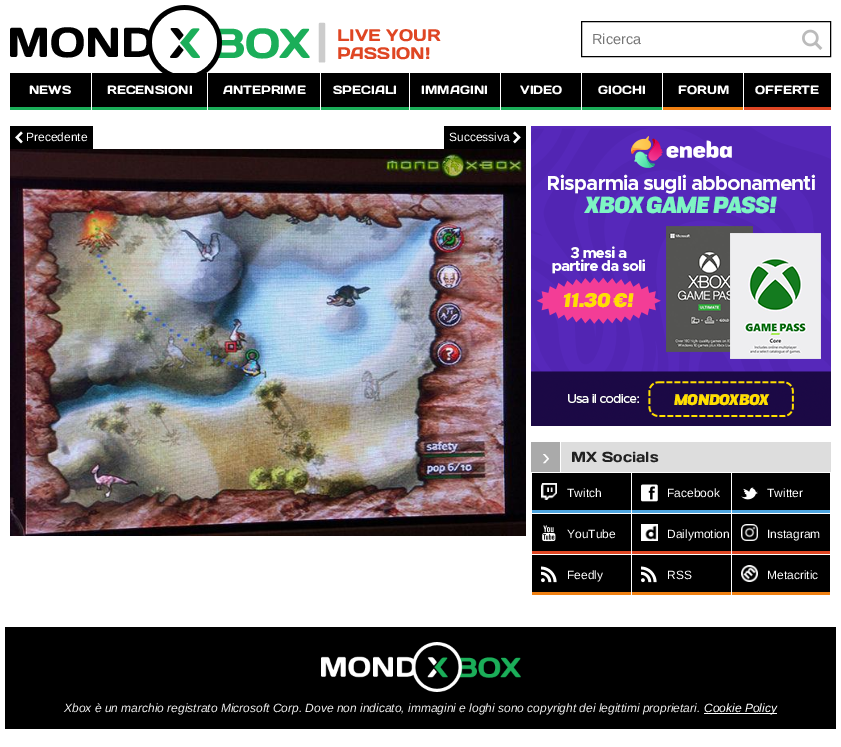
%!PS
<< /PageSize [841 747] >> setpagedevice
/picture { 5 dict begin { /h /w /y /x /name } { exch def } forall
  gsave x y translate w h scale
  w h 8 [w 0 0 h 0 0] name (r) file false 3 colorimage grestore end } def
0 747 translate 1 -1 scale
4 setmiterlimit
1 setgray
0 0 841 747 rectfill
(img1.rgb) 10 5 316 68 picture
/DaysOne-Regular [16.75 0 0 -16.75 0 0] selectfont
0.875 0.275 0.137 setrgbcolor
337 41 moveto (LIVE YOUR) show
337 59 moveto (PASSION!) show
0 setgray
581.5 21.5 249 35 rectstroke
/LiberationSans-Regular [14.5 0 0 -14.5 0 0] selectfont
0.459 setgray
592 44 moveto (Ricerca) show
(img2.rgb) 802 29 21 21 picture
0 setgray
10 73 81 34 rectfill
0.106 0.682 0.349 setrgbcolor
10 107 81 3 rectfill
/DaysOne-Regular [12 0 0 -12 0 0] selectfont
1 setgray
29 94 moveto (NEWS) show
0 setgray
92 73 115 34 rectfill
0.106 0.682 0.349 setrgbcolor
92 107 115 3 rectfill
1 setgray
107 94 moveto (RECENSIONI) show
0 setgray
208 73 112 34 rectfill
0.106 0.682 0.349 setrgbcolor
208 107 112 3 rectfill
1 setgray
223 94 moveto (ANTEPRIME) show
0 setgray
321 73 88 34 rectfill
0.106 0.682 0.349 setrgbcolor
321 107 88 3 rectfill
1 setgray
333 94 moveto (SPECIALI) show
0 setgray
410 73 90 34 rectfill
0.106 0.682 0.349 setrgbcolor
410 107 90 3 rectfill
1 setgray
421 94 moveto (IMMAGINI) show
0 setgray
501 73 80 34 rectfill
0.106 0.682 0.349 setrgbcolor
501 107 80 3 rectfill
1 setgray
520 94 moveto (VIDEO) show
0 setgray
582 73 80 34 rectfill
0.106 0.682 0.349 setrgbcolor
582 107 80 3 rectfill
1 setgray
598 94 moveto (GIOCHI) show
0 setgray
663 73 80 34 rectfill
0.941 0.502 0.071 setrgbcolor
663 107 80 3 rectfill
1 setgray
678 94 moveto (FORUM) show
0 setgray
744 73 87 34 rectfill
0.875 0.275 0.137 setrgbcolor
744 107 87 3 rectfill
1 setgray
755 94 moveto (OFFERTE) show
0 setgray
10 126 83 23 rectfill
(img3.rgb) 15 131 8 13 picture
/LiberationSans-Regular [12 0 0 -12 0 0] selectfont
1 setgray
26 141 moveto (Precedente) show
0 setgray
444 126 82 23 rectfill
1 setgray
449 141 moveto (Successiva) show
(img4.rgb) 513 131 8 13 picture
(img5.rgb) 10 149 516 387 picture
(img6.rgb) 531 126 300 300 picture
0.867 setgray
561 442 270 30 rectfill
0.667 setgray
531 442 29 30 rectfill
/LiberationSans-Regular [24 0 0 -24 0 0] selectfont
1 setgray
542 465 moveto (›) show
/DaysOne-Regular [14.5 0 0 -14.5 0 0] selectfont
0.133 setgray
571 462 moveto (MX Socials) show
0 setgray
532 473 99 37 rectfill
0.302 0.647 0.878 setrgbcolor
532 510 99 3 rectfill
(img7.rgb) 541 483 16 17 picture
/LiberationSans-Regular [12 0 0 -12 0 0] selectfont
1 setgray
567 497 moveto (Twitch) show
0 setgray
632 473 99 37 rectfill
0.302 0.647 0.878 setrgbcolor
632 510 99 3 rectfill
(img8.rgb) 641 484 17 18 picture
1 setgray
667 497 moveto (Facebook) show
0 setgray
732 473 98 37 rectfill
0.302 0.647 0.878 setrgbcolor
732 510 98 3 rectfill
(img9.rgb) 741 487 17 13 picture
1 setgray
767 497 moveto (Twitter) show
0 setgray
532 514 99 37 rectfill
0.875 0.275 0.137 setrgbcolor
532 551 99 3 rectfill
(img10.rgb) 542 525 14 17 picture
1 setgray
567 538 moveto (YouTube) show
0 setgray
632 514 99 37 rectfill
0.875 0.275 0.137 setrgbcolor
632 551 99 3 rectfill
(img11.rgb) 641 524 17 17 picture
1 setgray
667 538 moveto (Dailymotion) show
0 setgray
732 514 98 37 rectfill
0.875 0.275 0.137 setrgbcolor
732 551 98 3 rectfill
(img12.rgb) 741 524 17 17 picture
1 setgray
767 538 moveto (Instagram) show
0 setgray
532 555 99 37 rectfill
0.941 0.502 0.071 setrgbcolor
532 592 99 3 rectfill
(img13.rgb) 541 566 16 17 picture
1 setgray
567 579 moveto (Feedly) show
0 setgray
632 555 99 37 rectfill
0.941 0.502 0.071 setrgbcolor
632 592 99 3 rectfill
(img13.rgb) 641 566 16 17 picture
1 setgray
667 579 moveto (RSS) show
0 setgray
732 555 98 37 rectfill
0.941 0.502 0.071 setrgbcolor
732 592 98 3 rectfill
(img14.rgb) 741 565 17 17 picture
1 setgray
767 579 moveto (Metacritic) show
0 setgray
5 627 831 102 rectfill
(img15.rgb) 321 642 200 50 picture
/LiberationSans-Italic [12 0 0 -12 0 0] selectfont
0.933 setgray
64 712 moveto (Xbox è un marchio registrato Microsoft Corp. Dove non indicato, immagini e loghi sono copyright dei legittimi proprietari.) show
1 setgray
704 713 73 1 rectfill
704 712 moveto (Cookie Policy) show
showpage
